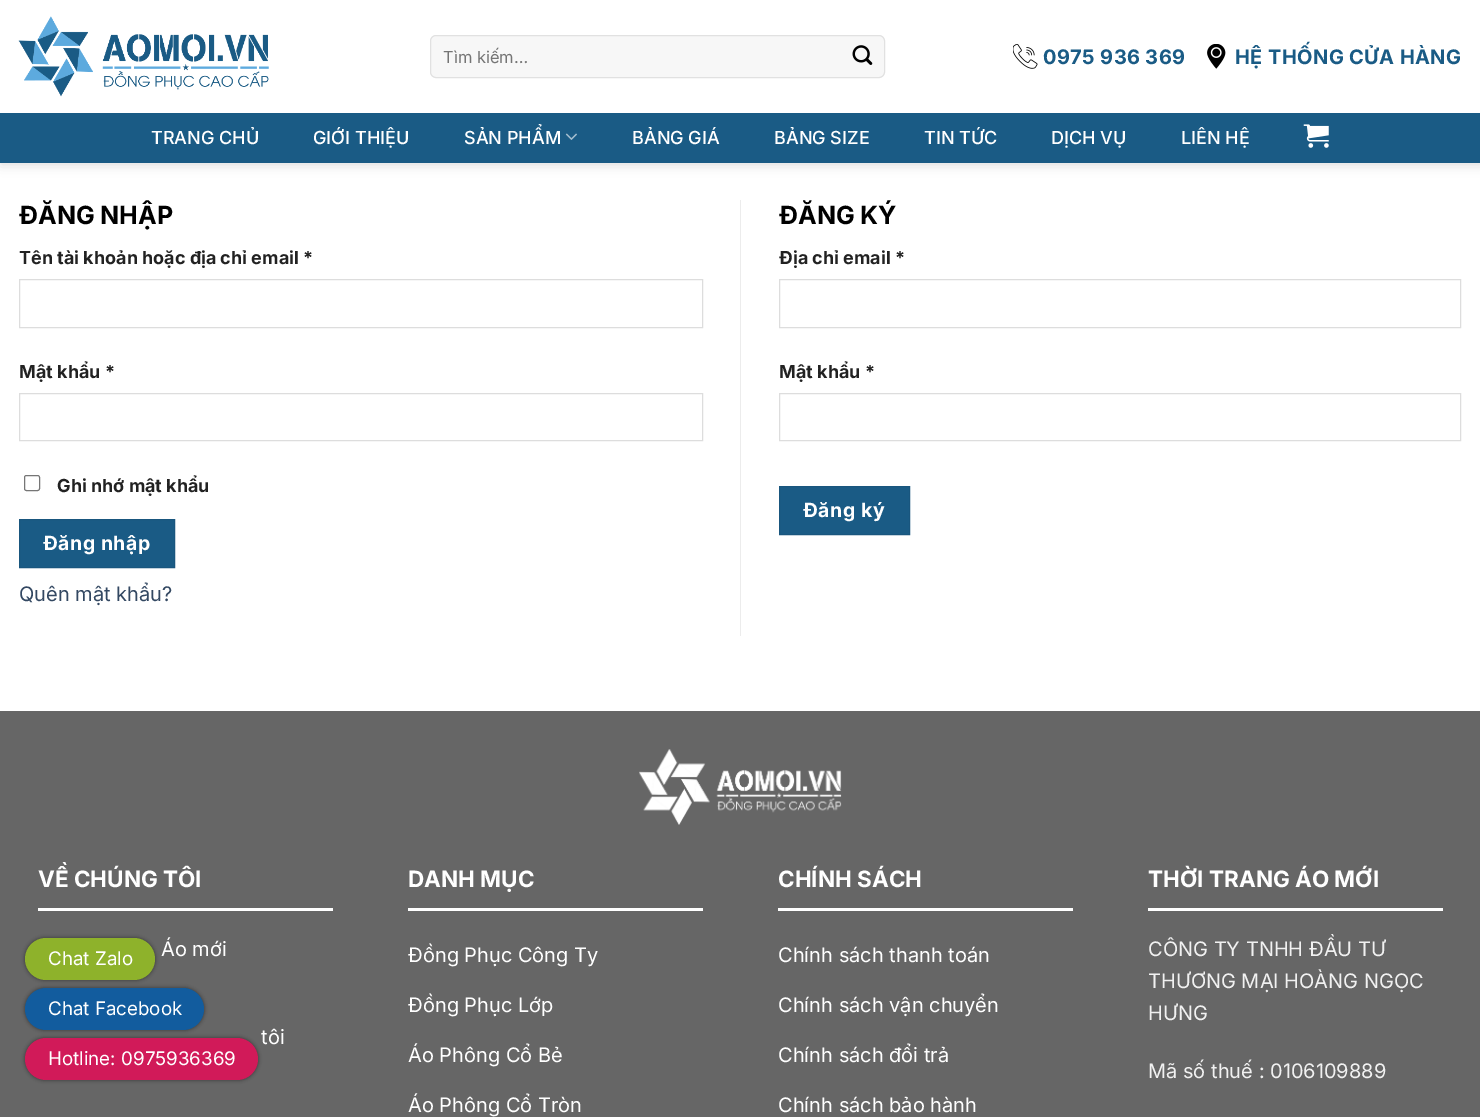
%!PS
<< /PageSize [1480 1117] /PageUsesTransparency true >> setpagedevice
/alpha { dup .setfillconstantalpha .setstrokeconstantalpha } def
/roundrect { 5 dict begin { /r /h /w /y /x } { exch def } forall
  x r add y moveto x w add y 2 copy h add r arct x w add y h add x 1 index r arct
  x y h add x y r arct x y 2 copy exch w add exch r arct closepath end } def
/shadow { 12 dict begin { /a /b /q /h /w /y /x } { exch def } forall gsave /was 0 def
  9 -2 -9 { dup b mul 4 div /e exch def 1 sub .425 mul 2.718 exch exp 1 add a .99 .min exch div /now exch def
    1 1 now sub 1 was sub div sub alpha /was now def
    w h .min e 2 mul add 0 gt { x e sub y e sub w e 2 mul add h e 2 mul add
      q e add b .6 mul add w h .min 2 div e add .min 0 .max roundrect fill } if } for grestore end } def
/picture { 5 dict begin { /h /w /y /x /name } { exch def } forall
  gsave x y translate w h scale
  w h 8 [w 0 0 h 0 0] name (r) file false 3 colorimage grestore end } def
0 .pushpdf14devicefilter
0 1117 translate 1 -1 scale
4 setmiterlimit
1 setgray
0 0 1480 1117 rectfill
0 setgray
1 1 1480 163 0 6 0.15 shadow
1 setgray
0 0 1480 113 rectfill
(img1.rgb) 18 16 251 81 picture
0.969 setgray
430.5 35.5 454 42 5.5 roundrect gsave fill grestore
0.882 setgray
stroke
/Inter-Regular [16.5 0 0 -16.5 0 0] selectfont
0.459 setgray
443 63 moveto (Tìm kiếm…) show
(img2.rgb) 852 45 21 20 picture
(img3.rgb) 1013 44 25 25 picture
/Inter-Bold [20 0 0 -20 0 0] selectfont
0.102 0.357 0.522 setrgbcolor
1043 64 moveto 0.4 0 (0975 936 369) ashow
(img4.rgb) 1207 44 19 25 picture
1235 64 moveto 0.4 0 (HỆ THỐNG CỬA HÀNG) ashow
0 113 1480 50 rectfill
/Inter-Medium [18 0 0 -18 0 0] selectfont
1 setgray
151 144 moveto (TRANG CHỦ) show
313 144 moveto (GIỚI THIỆU) show
464 144 moveto (SẢN PHẨM) show
(img5.rgb) 565 133 12 7 picture
632 144 moveto (BẢNG GIÁ) show
774 144 moveto (BẢNG SIZE) show
924 144 moveto (TIN TỨC) show
1051 144 moveto (DỊCH VỤ) show
1181 144 moveto (LIÊN HỆ) show
(img6.rgb) 1303 124 26 24 picture
/Inter-Bold [25 0 0 -25 0 0] selectfont
0 setgray
19 224 moveto (ĐĂNG NHẬP) show
/Inter-Bold [18 0 0 -18 0 0] selectfont
0.133 setgray
19 264 moveto (Tên tài khoản hoặc địa chỉ email *) show
0.867 setgray
19.5 279.5 683 48 rectstroke
0.133 setgray
19 378 moveto (Mật khẩu *) show
0.867 setgray
19.5 393.5 683 47 rectstroke
0.463 setgray
24.5 475.5 15 15 2 roundrect stroke
0.133 setgray
57 492 moveto (Ghi nhớ mật khẩu) show
0.102 0.357 0.522 setrgbcolor
newpath 19.5 519.5 moveto 174.5 519.5 lineto 174.5 567.5 lineto 19.5 567.5 lineto closepath gsave fill grestore
0.098 0.337 0.494 setrgbcolor
stroke
/Inter-Bold [19.5 0 0 -19.5 0 0] selectfont
1 setgray
43 550 moveto 0.5 0 (Đăng nhập) ashow
/Inter-Regular [20 0 0 -20 0 0] selectfont
0.2 0.282 0.384 setrgbcolor
19 601 moveto (Quên mật khẩu?) show
0.925 setgray
740 200 1 436 rectfill
/Inter-Bold [25 0 0 -25 0 0] selectfont
0 setgray
779 224 moveto (ĐĂNG KÝ) show
/Inter-Bold [18 0 0 -18 0 0] selectfont
0.133 setgray
779 264 moveto (Địa chỉ email *) show
0.867 setgray
779.5 279.5 681 48 rectstroke
0.133 setgray
779 378 moveto (Mật khẩu *) show
0.867 setgray
779.5 393.5 681 47 rectstroke
0.102 0.357 0.522 setrgbcolor
newpath 779.5 486.5 moveto 909.5 486.5 lineto 909.5 534.5 lineto 779.5 534.5 lineto closepath gsave fill grestore
0.098 0.337 0.494 setrgbcolor
stroke
/Inter-Bold [19.5 0 0 -19.5 0 0] selectfont
1 setgray
803 517 moveto 0.5 0 (Đăng ký) ashow
0.4 setgray
0 711 1480 406 rectfill
(img7.rgb) 639 749 203 76 picture
1 setgray
38 908 295 3 rectfill
/Inter-Bold [22.5 0 0 -22.5 0 0] selectfont
38 887 moveto (VỀ CHÚNG TÔI) show
/Inter-Regular [20 0 0 -20 0 0] selectfont
161 956 moveto (Áo mới) show
261 1044 moveto (tôi) show
408 908 295 3 rectfill
/Inter-Bold [22.5 0 0 -22.5 0 0] selectfont
408 887 moveto (DANH MỤC) show
/Inter-Regular [20 0 0 -20 0 0] selectfont
408 962 moveto (Đồng Phục Công Ty) show
408 1012 moveto (Đồng Phục Lớp) show
408 1062 moveto (Áo Phông Cổ Bẻ) show
408 1112 moveto (Áo Phông Cổ Tròn) show
778 908 295 3 rectfill
/Inter-Bold [22.5 0 0 -22.5 0 0] selectfont
778 887 moveto (CHÍNH SÁCH) show
/Inter-Regular [20 0 0 -20 0 0] selectfont
778 962 moveto (Chính sách thanh toán) show
778 1012 moveto (Chính sách vận chuyển) show
778 1062 moveto (Chính sách đổi trả) show
778 1112 moveto (Chính sách bảo hành) show
1148 908 295 3 rectfill
/Inter-Bold [22.5 0 0 -22.5 0 0] selectfont
1148 887 moveto (THỜI TRANG ÁO MỚI) show
/Inter-Regular [20 0 0 -20 0 0] selectfont
0.945 setgray
1148 956 moveto (CÔNG TY TNHH ĐẦU TƯ) show
1148 988 moveto (THƯƠNG MẠI HOÀNG NGỌC) show
1148 1020 moveto (HƯNG) show
1148 1078 moveto (Mã số thuế : 0106109889) show
0.2 setgray
25 938 130 42 21 2 1 shadow
0.557 0.698 0.169 setrgbcolor
25 938 130 42 21 roundrect fill
/Inter-Regular [18.75 0 0 -18.75 0 0] selectfont
1 setgray
48 965 moveto (Chat Zalo) show
0.2 setgray
25 988 179 42 21 2 1 shadow
0.071 0.361 0.62 setrgbcolor
25 988 179 42 21 roundrect fill
1 setgray
48 1015 moveto (Chat Facebook) show
0.2 setgray
25 1038 233 42 21 2 1 shadow
0.82 0.102 0.349 setrgbcolor
25 1038 233 42 21 roundrect fill
1 setgray
48 1065 moveto (Hotline: 0975936369) show
.poppdf14devicefilter showpage
